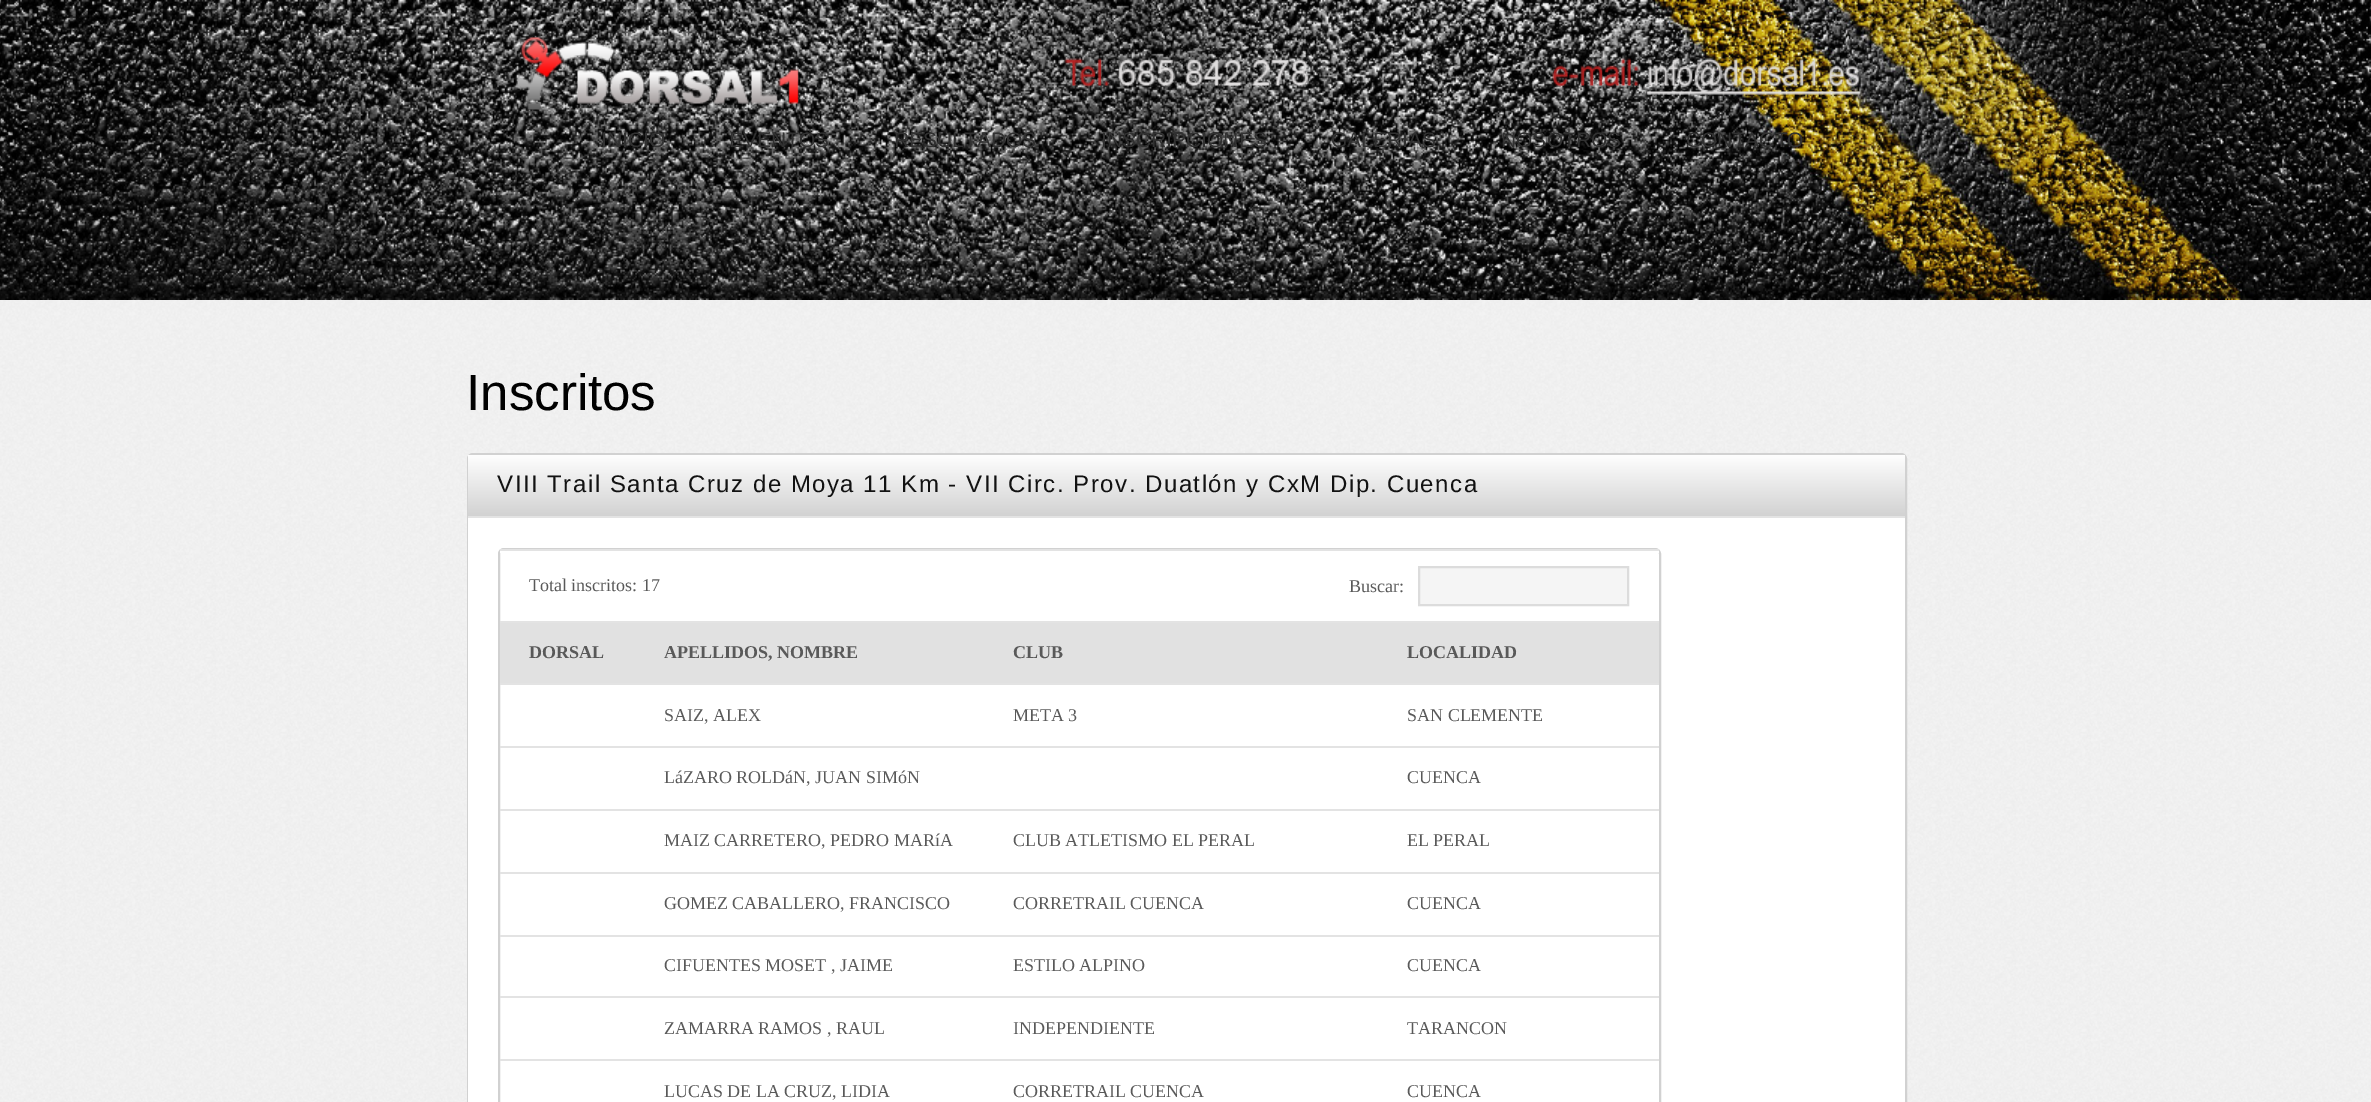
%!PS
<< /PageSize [2371 1102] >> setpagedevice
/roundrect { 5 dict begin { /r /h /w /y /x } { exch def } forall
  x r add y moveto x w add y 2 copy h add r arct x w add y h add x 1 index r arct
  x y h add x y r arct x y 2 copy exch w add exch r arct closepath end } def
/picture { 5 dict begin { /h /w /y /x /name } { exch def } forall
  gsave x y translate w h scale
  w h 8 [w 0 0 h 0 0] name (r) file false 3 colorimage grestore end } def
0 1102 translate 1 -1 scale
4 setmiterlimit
1 setgray
0 0 2371 1102 rectfill
(img1.rgb) 0 300 2371 802 picture
(img2.rgb) 0 0 2371 300 picture
(img3.rgb) 515 37 1347 73 picture
/LiberationSans-Regular [21 0 0 -21 0 0] selectfont
0.192 setgray
601 147 moveto (INICIO) show
729 147 moveto (EVENTOS) show
894 147 moveto (RESULTADOS) show
1101 147 moveto (INSCRIPCIONES) show
1331 147 moveto (GALERIAS) show
1501 147 moveto (NOSOTROS) show
1686 147 moveto (CONTACTO) show
/LiberationSans-Regular [51 0 0 -51 0 0] selectfont
0 setgray
466 410 moveto (Inscritos) show
0.82 setgray
2 setlinewidth
468 454 1438 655 5 roundrect stroke
gsave newpath 468 455 moveto 1905 455 lineto 1905 516 lineto 468 516 lineto closepath clip newpath
<< /ShadingType 2 /ColorSpace /DeviceRGB /Coords [468 455 468 516] /Extend [true true] /Function << /FunctionType 2 /Domain [0 1] /C0 [0.996 0.996 0.996] /C1 [0.824 0.824 0.824] /N 1 >> >> shfill grestore
/LiberationSans-Regular [24 0 0 -24 0 0] selectfont
0.071 setgray
497 492 moveto 1.5 0 (VIII Trail Santa Cruz de Moya 11 Km - VII Circ. Prov. Duatlón y CxM Dip. Cuenca) ashow
1 setgray
468 518 1437 584 rectfill
0.89 setgray
468 516 1437 2 rectfill
0.82 setgray
499 549 1161 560 5 roundrect stroke
1 setgray
500 551 1159 2 rectfill
0.89 setgray
500 549 1159 2 rectfill
/LiberationSerif-Regular [18 0 0 -18 0 0] selectfont
0.349 setgray
529 591 moveto (Total inscritos: 17) show
1349 592 moveto (Buscar:) show
0.961 setgray
newpath 1419 567 moveto 1628 567 lineto 1628 605 lineto 1419 605 lineto closepath gsave fill grestore
0.863 setgray
stroke
0.882 setgray
500 623 1159 60 rectfill
0.89 setgray
500 621 1159 2 rectfill
/LiberationSerif-Bold [18 0 0 -18 0 0] selectfont
0.349 setgray
529 658 moveto (DORSAL) show
664 658 moveto (APELLIDOS, NOMBRE) show
1013 658 moveto (CLUB) show
1407 658 moveto (LOCALIDAD) show
0.89 setgray
500 683 1159 2 rectfill
/LiberationSerif-Regular [18 0 0 -18 0 0] selectfont
0.349 setgray
664 721 moveto (SAIZ, ALEX) show
1013 721 moveto (META 3) show
1407 721 moveto (SAN CLEMENTE) show
0.89 setgray
500 746 1159 2 rectfill
0.349 setgray
664 783 moveto (LáZARO ROLDáN, JUAN SIMóN) show
1407 783 moveto (CUENCA) show
0.89 setgray
500 809 1159 2 rectfill
0.349 setgray
664 846 moveto (MAIZ CARRETERO, PEDRO MARíA) show
1013 846 moveto (CLUB ATLETISMO EL PERAL) show
1407 846 moveto (EL PERAL) show
0.89 setgray
500 872 1159 2 rectfill
0.349 setgray
664 909 moveto (GOMEZ CABALLERO, FRANCISCO) show
1013 909 moveto (CORRETRAIL CUENCA) show
1407 909 moveto (CUENCA) show
0.89 setgray
500 935 1159 2 rectfill
0.349 setgray
664 971 moveto (CIFUENTES MOSET , JAIME) show
1013 971 moveto (ESTILO ALPINO) show
1407 971 moveto (CUENCA) show
0.89 setgray
500 996 1159 2 rectfill
0.349 setgray
664 1034 moveto (ZAMARRA RAMOS , RAUL) show
1013 1034 moveto (INDEPENDIENTE) show
1407 1034 moveto (TARANCON) show
0.89 setgray
500 1059 1159 2 rectfill
0.349 setgray
664 1097 moveto (LUCAS DE LA CRUZ, LIDIA) show
1013 1097 moveto (CORRETRAIL CUENCA) show
1407 1097 moveto (CUENCA) show
showpage
